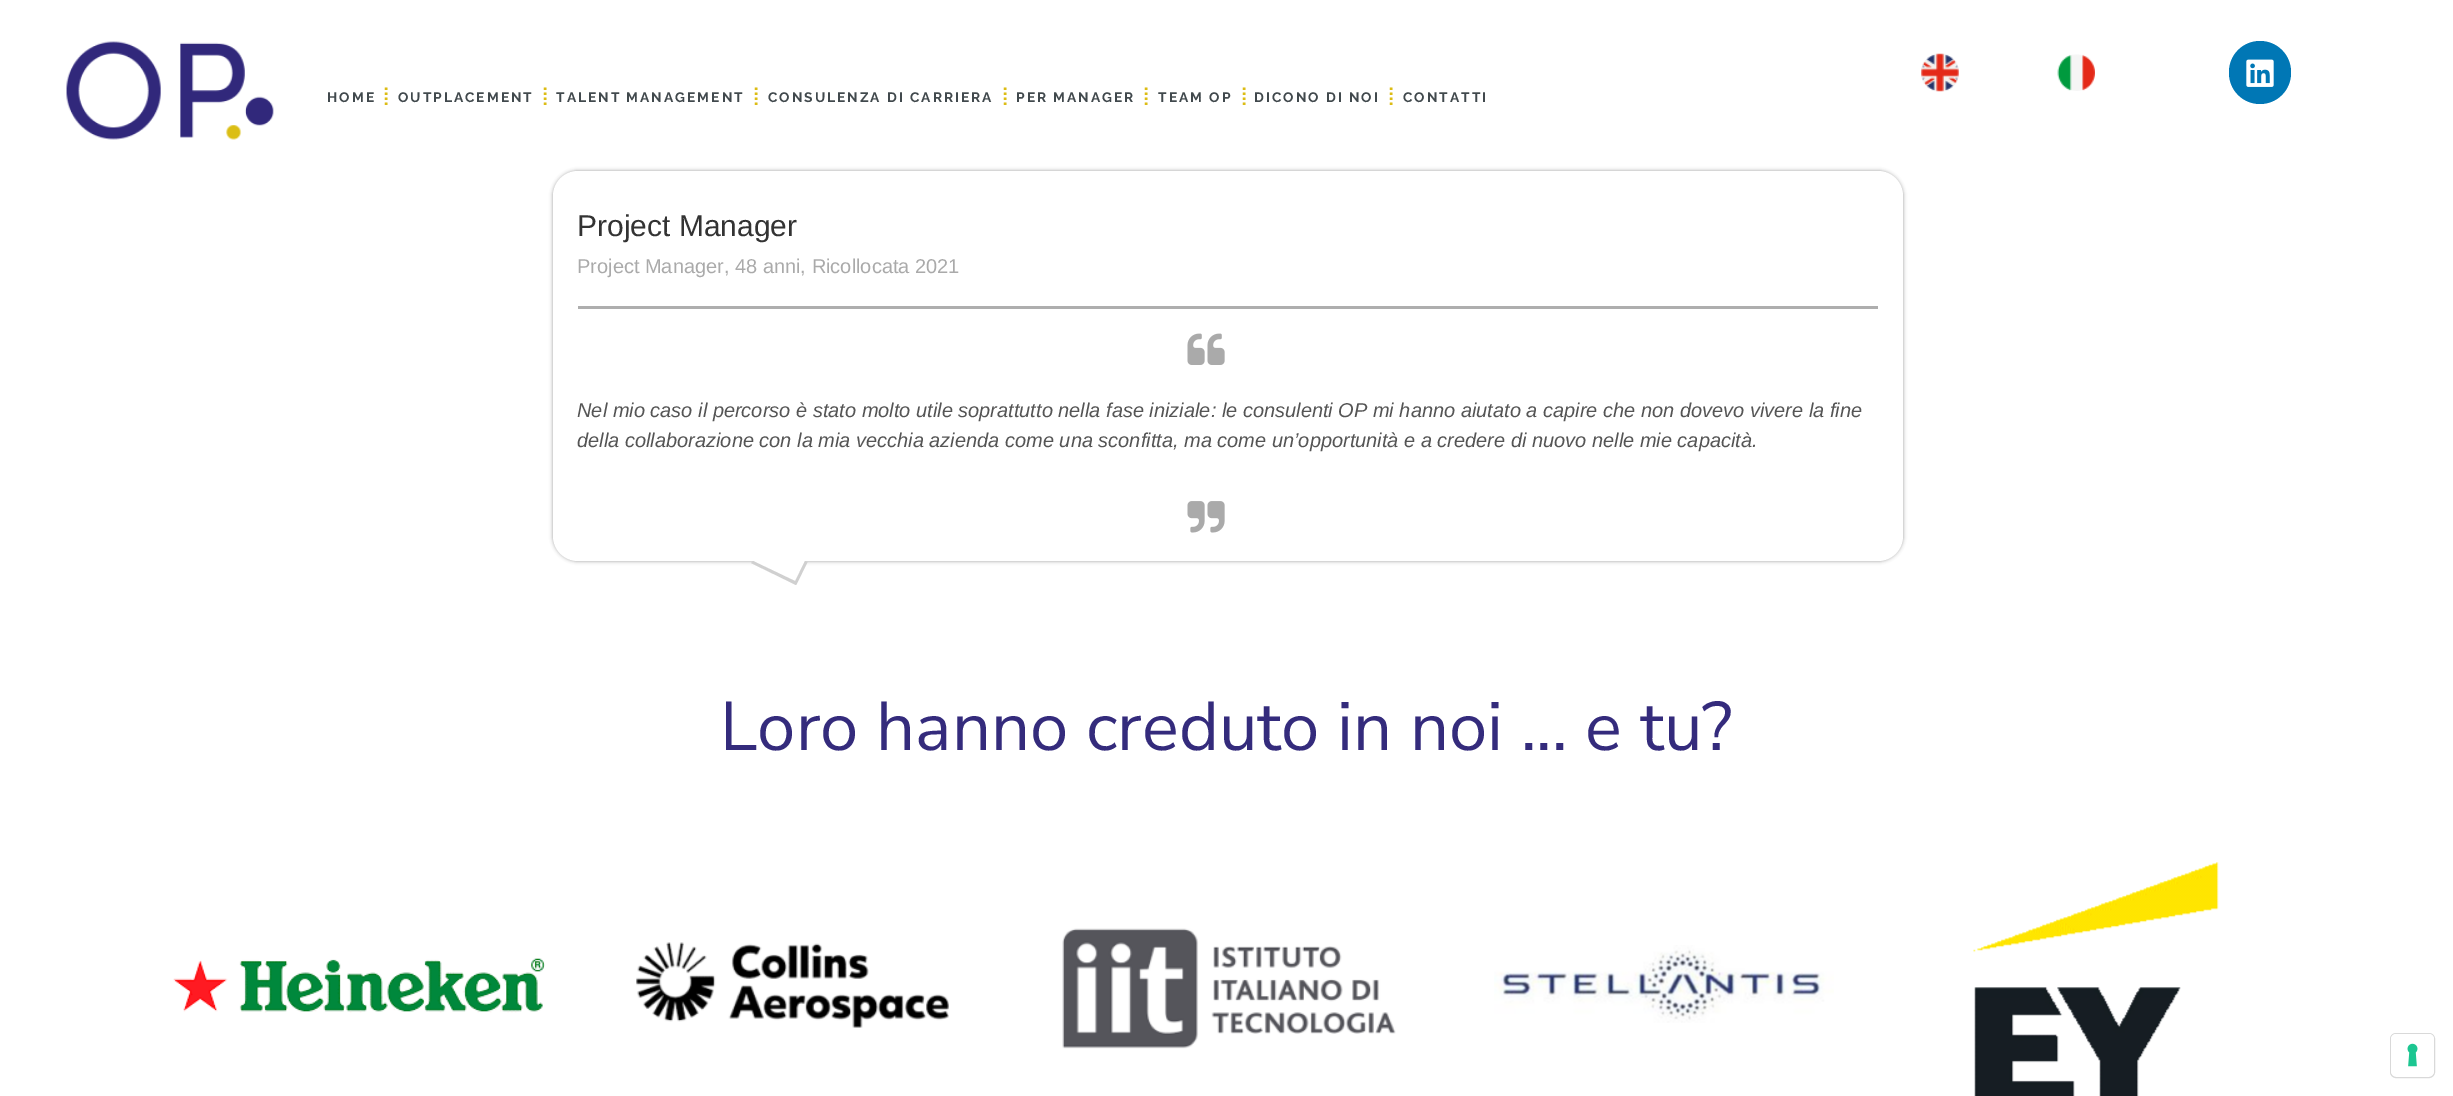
%!PS
<< /PageSize [2453 1096] /PageUsesTransparency true >> setpagedevice
/alpha { dup .setfillconstantalpha .setstrokeconstantalpha } def
/roundrect { 5 dict begin { /r /h /w /y /x } { exch def } forall
  x r add y moveto x w add y 2 copy h add r arct x w add y h add x 1 index r arct
  x y h add x y r arct x y 2 copy exch w add exch r arct closepath end } def
/shadow { 12 dict begin { /a /b /q /h /w /y /x } { exch def } forall gsave /was 0 def
  9 -2 -9 { dup b mul 4 div /e exch def 1 sub .425 mul 2.718 exch exp 1 add a .99 .min exch div /now exch def
    1 1 now sub 1 was sub div sub alpha /was now def
    w h .min e 2 mul add 0 gt { x e sub y e sub w e 2 mul add h e 2 mul add
      q e add b .6 mul add w h .min 2 div e add .min 0 .max roundrect fill } if } for grestore end } def
/picture { 5 dict begin { /h /w /y /x /name } { exch def } forall
  gsave x y translate w h scale
  w h 8 [w 0 0 h 0 0] name (r) file false 3 colorimage grestore end } def
0 .pushpdf14devicefilter
0 1096 translate 1 -1 scale
4 setmiterlimit
1 setgray
0 0 2453 1096 rectfill
(img1.rgb) 66 41 208 99 picture
/Raleway-Bold [13.75 0 0 -13.75 0 0] selectfont
0.255 0.286 0.302 setrgbcolor
327 102 moveto 2 0 (HOME) ashow
0.863 0.737 0.078 setrgbcolor
2.5 setlinewidth
[2.5 2.5] 0 setdash
newpath 386 87.5 moveto 386 107.5 lineto stroke
0.255 0.286 0.302 setrgbcolor
398 102 moveto 2 0 (OUTPLACEMENT) ashow
0.863 0.737 0.078 setrgbcolor
newpath 545 87.5 moveto 545 107.5 lineto stroke
0.255 0.286 0.302 setrgbcolor
556 102 moveto 2 0 (TALENT MANAGEMENT) ashow
0.863 0.737 0.078 setrgbcolor
newpath 756 87.5 moveto 756 107.5 lineto stroke
0.255 0.286 0.302 setrgbcolor
768 102 moveto 2 0 (CONSULENZA DI CARRIERA) ashow
0.863 0.737 0.078 setrgbcolor
newpath 1005 87.5 moveto 1005 107.5 lineto stroke
0.255 0.286 0.302 setrgbcolor
1016 102 moveto 2 0 (PER MANAGER) ashow
0.863 0.737 0.078 setrgbcolor
newpath 1146 87.5 moveto 1146 107.5 lineto stroke
0.255 0.286 0.302 setrgbcolor
1158 102 moveto 2 0 (TEAM OP) ashow
0.863 0.737 0.078 setrgbcolor
newpath 1244 87.5 moveto 1244 107.5 lineto stroke
0.255 0.286 0.302 setrgbcolor
1254 102 moveto 2 0 (DICONO DI NOI) ashow
0.863 0.737 0.078 setrgbcolor
newpath 1391 87.5 moveto 1391 107.5 lineto stroke
0.255 0.286 0.302 setrgbcolor
1403 102 moveto 2 0 (CONTATTI) ashow
(img2.rgb) 1921 53 38 39 picture
(img3.rgb) 2057 54 38 37 picture
0 0.467 0.71 setrgbcolor
2229 41 62 63 31 roundrect fill
(img4.rgb) 2246 59 28 28 picture
0.6 setgray
553 171 1350 390 25 2 1 shadow
1 setgray
553 171 1350 390 25 roundrect fill
/LiberationSans-Regular [30 0 0 -30 0 0] selectfont
0.2 setgray
577 236 moveto (Project Manager) show
/LiberationSans-Regular [20 0 0 -20 0 0] selectfont
0.667 setgray
577 273 moveto (Project Manager, 48 anni, Ricollocata 2021) show
0.682 setgray
578 306 1300 3 rectfill
(img5.rgb) 1187 333 38 32 picture
/LiberationSans-Italic [20 0 0 -20 0 0] selectfont
0.333 setgray
577 417 moveto (Nel mio caso il percorso è stato molto utile soprattutto nella fase iniziale: le consulenti OP mi hanno aiutato a capire che non dovevo vivere la fine) show
577 447 moveto (della collaborazione con la mia vecchia azienda come una sconfitta, ma come un’opportunità e a credere di nuovo nelle mie capacità.) show
(img6.rgb) 1187 501 38 32 picture
1 setgray
newpath 762 540 moveto 805 561 lineto 795 581 lineto 753 561 lineto closepath fill
0.816 setgray
newpath 805 561 moveto 807.5 562 lineto 796.5 584.5 lineto 794 583.5 lineto closepath fill
newpath 753 561 moveto 797 582 lineto 796 585 lineto 751 563 lineto closepath fill
/NunitoSans-Regular [68.75 0 0 -68.75 0 0] selectfont
0.204 0.169 0.486 setrgbcolor
720 750 moveto (Loro hanno creduto in noi ... e tu?) show
(img7.rgb) 173 958 372 55 picture
(img8.rgb) 636 942 313 86 picture
(img9.rgb) 1062 928 334 121 picture
(img10.rgb) 1494 945 340 78 picture
(img11.rgb) 1973 862 246 234 picture
0.851 setgray
1 setlinewidth
[] 0 setdash
2390.5 1033.5 44 44 5.5 roundrect stroke
1 setgray
2391 1034 43 42 5 roundrect fill
(img12.rgb) 2407 1043 11 24 picture
.poppdf14devicefilter showpage
